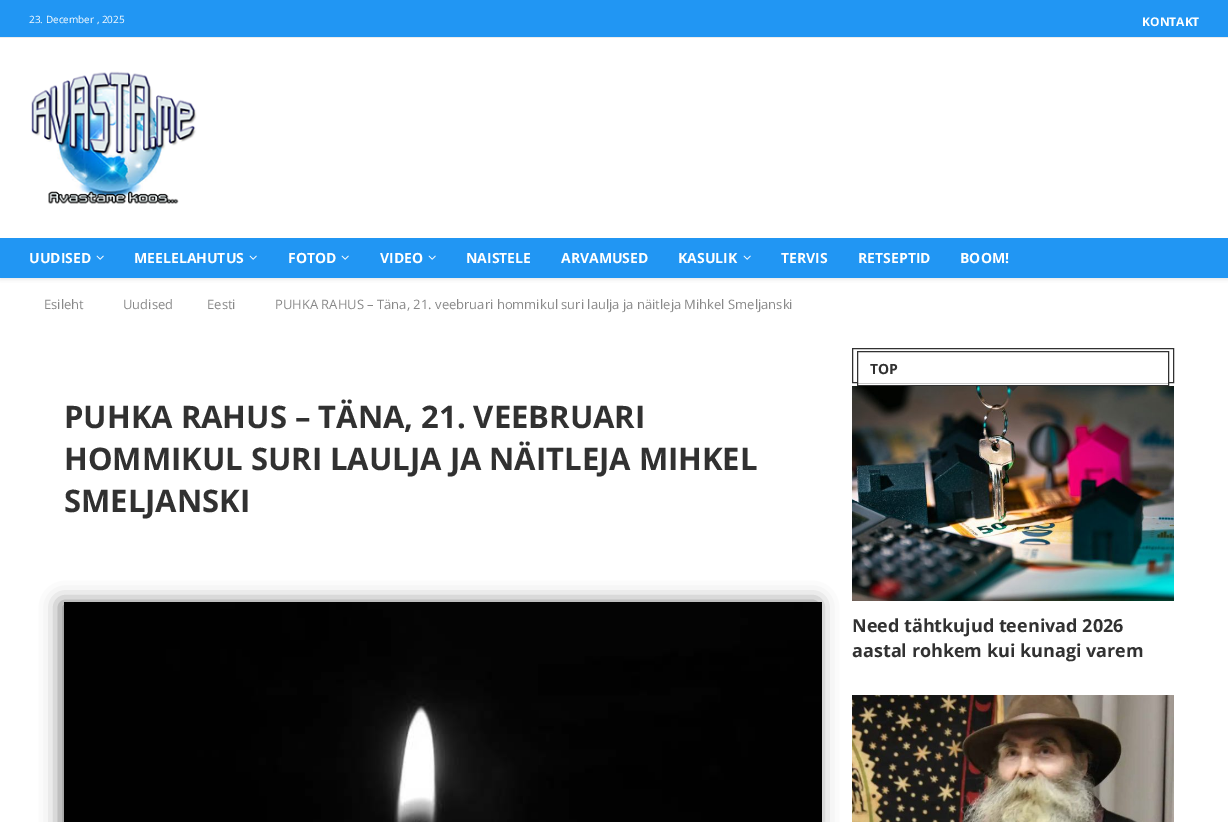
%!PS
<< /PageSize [1228 822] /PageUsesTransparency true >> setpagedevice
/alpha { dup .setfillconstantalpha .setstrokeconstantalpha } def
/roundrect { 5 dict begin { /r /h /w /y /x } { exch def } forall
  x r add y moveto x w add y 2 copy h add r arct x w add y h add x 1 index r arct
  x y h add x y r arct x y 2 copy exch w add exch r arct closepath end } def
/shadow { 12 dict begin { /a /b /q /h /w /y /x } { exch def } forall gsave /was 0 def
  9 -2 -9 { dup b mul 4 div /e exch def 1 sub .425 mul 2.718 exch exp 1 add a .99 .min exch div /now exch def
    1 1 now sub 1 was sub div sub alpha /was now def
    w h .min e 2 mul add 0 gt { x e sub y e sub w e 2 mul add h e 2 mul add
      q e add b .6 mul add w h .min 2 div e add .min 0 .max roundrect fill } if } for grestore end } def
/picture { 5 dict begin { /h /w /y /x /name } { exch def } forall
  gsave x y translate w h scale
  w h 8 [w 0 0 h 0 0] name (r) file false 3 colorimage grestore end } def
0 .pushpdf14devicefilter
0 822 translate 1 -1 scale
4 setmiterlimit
1 setgray
0 0 1228 822 rectfill
gsave
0 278 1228 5 rectclip
0.745 setgray
0 1 1228 278 0 2.5 0.46 shadow
grestore
0.129 0.588 0.953 setrgbcolor
0 0 1228 37 rectfill
0.925 setgray
0 37 1228 1 rectfill
/OpenSans-Regular [10 0 0 -10 0 0] selectfont
1 setgray
29 23 moveto (23. December , 2025) show
/OpenSans-Bold [12 0 0 -12 0 0] selectfont
1142 26 moveto (KONTAKT) show
(img1.rgb) 31 71 166 133 picture
0.129 0.588 0.953 setrgbcolor
0 238 1228 40 rectfill
/OpenSans-Bold [14 0 0 -14 0 0] selectfont
1 setgray
29 263 moveto (UUDISED) show
(img2.rgb) 96 255 8 5 picture
134 263 moveto (MEELELAHUTUS) show
(img2.rgb) 249 255 8 5 picture
288 263 moveto (FOTOD) show
(img2.rgb) 341 255 8 5 picture
380 263 moveto (VIDEO) show
(img2.rgb) 428 255 8 5 picture
466 263 moveto (NAISTELE) show
561 263 moveto (ARVAMUSED) show
678 263 moveto (KASULIK) show
(img2.rgb) 743 255 8 5 picture
781 263 moveto (TERVIS) show
858 263 moveto (RETSEPTID) show
960 263 moveto (BOOM!) show
/OpenSans-Regular [13 0 0 -13 0 0] selectfont
0.533 setgray
44 309 moveto (Esileht) show
123 309 moveto (Uudised) show
207 309 moveto (Eesti) show
275 309 moveto (PUHKA RAHUS – Täna, 21. veebruari hommikul suri laulja ja näitleja Mihkel Smeljanski) show
/OpenSans-Bold [31 0 0 -31 0 0] selectfont
0.192 setgray
64 428 moveto (PUHKA RAHUS – TÄNA, 21. VEEBRUARI) show
64 470 moveto (HOMMIKUL SURI LAULJA JA NÄITLEJA MIHKEL) show
64 512 moveto (SMELJANSKI) show
0 setgray
60 602 758 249 0 9.5 0.5 shadow
(img3.rgb) 64 602 758 220 picture
0.192 setgray
852.5 348.5 321 34 rectstroke
1 setgray
858 382 310 1 rectfill
0.192 setgray
857.5 351.5 311 34 rectstroke
/OpenSans-Bold [14 0 0 -14 0 0] selectfont
870 374 moveto (TOP) show
(img4.rgb) 852 386 322 215 picture
newpath 1007 385 moveto 1019 385 lineto 1013 391 lineto closepath fill
/OpenSans-Bold [18 0 0 -18 0 0] selectfont
852 632 moveto (Need tähtkujud teenivad 2026) show
852 657 moveto (aastal rohkem kui kunagi varem) show
(img5.rgb) 852 695 322 127 picture
.poppdf14devicefilter showpage
